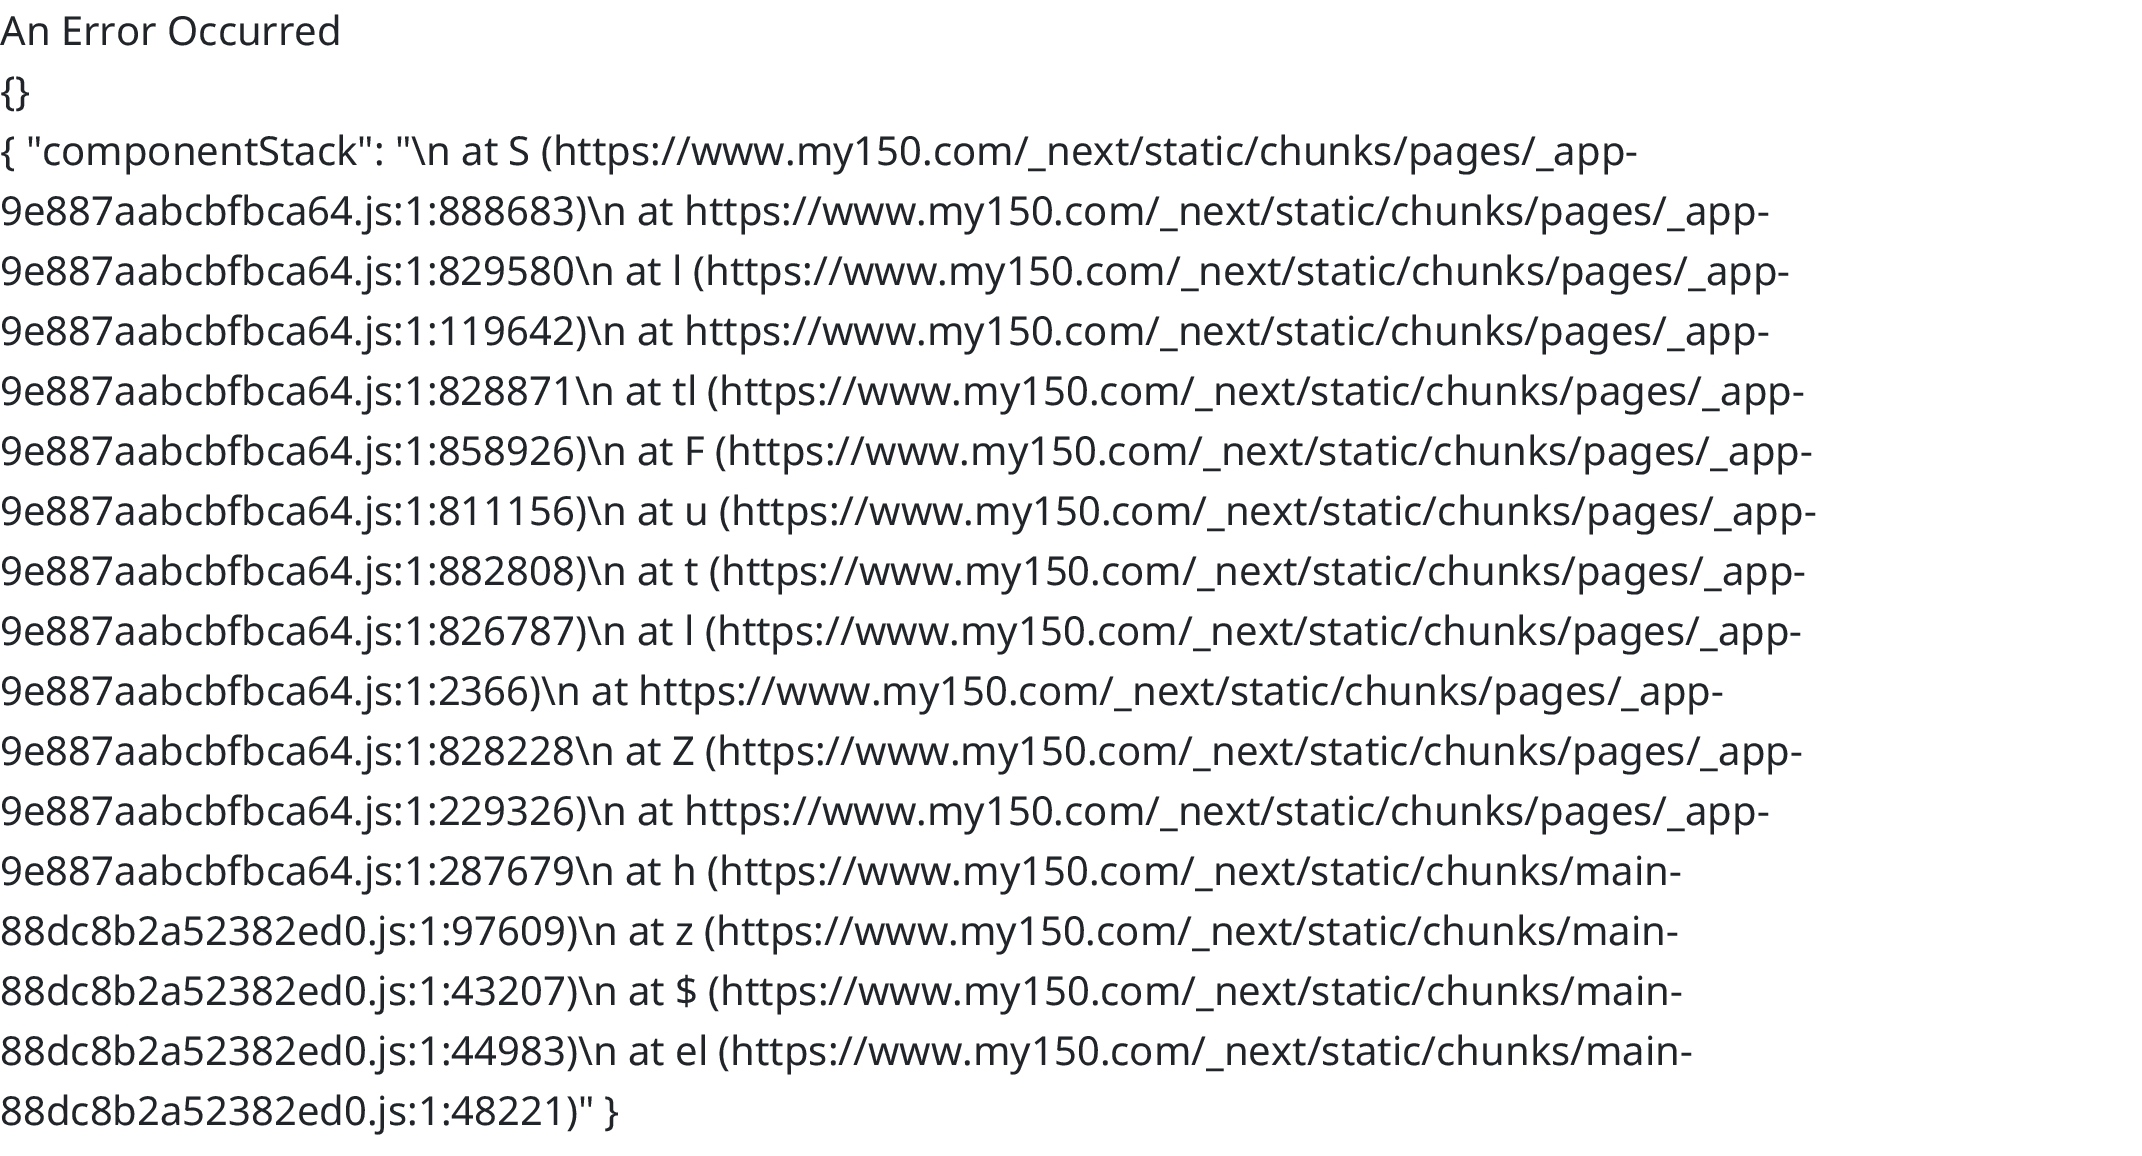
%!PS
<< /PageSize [2142 1156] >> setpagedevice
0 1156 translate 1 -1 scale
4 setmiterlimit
1 setgray
0 0 2142 1156 rectfill
/NotoSans-Regular [40 0 0 -40 0 0] selectfont
0.129 0.145 0.161 setrgbcolor
0 45 moveto (An Error Occurred) show
0 105 moveto ({}) show
0 165 moveto ({ "componentStack": "\\n at S \(https://www.my150.com/_next/static/chunks/pages/_app-) show
0 225 moveto (9e887aabcbfbca64.js:1:888683\)\\n at https://www.my150.com/_next/static/chunks/pages/_app-) show
0 285 moveto (9e887aabcbfbca64.js:1:829580\\n at l \(https://www.my150.com/_next/static/chunks/pages/_app-) show
0 345 moveto (9e887aabcbfbca64.js:1:119642\)\\n at https://www.my150.com/_next/static/chunks/pages/_app-) show
0 405 moveto (9e887aabcbfbca64.js:1:828871\\n at tl \(https://www.my150.com/_next/static/chunks/pages/_app-) show
0 465 moveto (9e887aabcbfbca64.js:1:858926\)\\n at F \(https://www.my150.com/_next/static/chunks/pages/_app-) show
0 525 moveto (9e887aabcbfbca64.js:1:811156\)\\n at u \(https://www.my150.com/_next/static/chunks/pages/_app-) show
0 585 moveto (9e887aabcbfbca64.js:1:882808\)\\n at t \(https://www.my150.com/_next/static/chunks/pages/_app-) show
0 645 moveto (9e887aabcbfbca64.js:1:826787\)\\n at l \(https://www.my150.com/_next/static/chunks/pages/_app-) show
0 705 moveto (9e887aabcbfbca64.js:1:2366\)\\n at https://www.my150.com/_next/static/chunks/pages/_app-) show
0 765 moveto (9e887aabcbfbca64.js:1:828228\\n at Z \(https://www.my150.com/_next/static/chunks/pages/_app-) show
0 825 moveto (9e887aabcbfbca64.js:1:229326\)\\n at https://www.my150.com/_next/static/chunks/pages/_app-) show
0 885 moveto (9e887aabcbfbca64.js:1:287679\\n at h \(https://www.my150.com/_next/static/chunks/main-) show
0 945 moveto (88dc8b2a52382ed0.js:1:97609\)\\n at z \(https://www.my150.com/_next/static/chunks/main-) show
0 1005 moveto (88dc8b2a52382ed0.js:1:43207\)\\n at $ \(https://www.my150.com/_next/static/chunks/main-) show
0 1065 moveto (88dc8b2a52382ed0.js:1:44983\)\\n at el \(https://www.my150.com/_next/static/chunks/main-) show
0 1125 moveto (88dc8b2a52382ed0.js:1:48221\)" }) show
showpage
